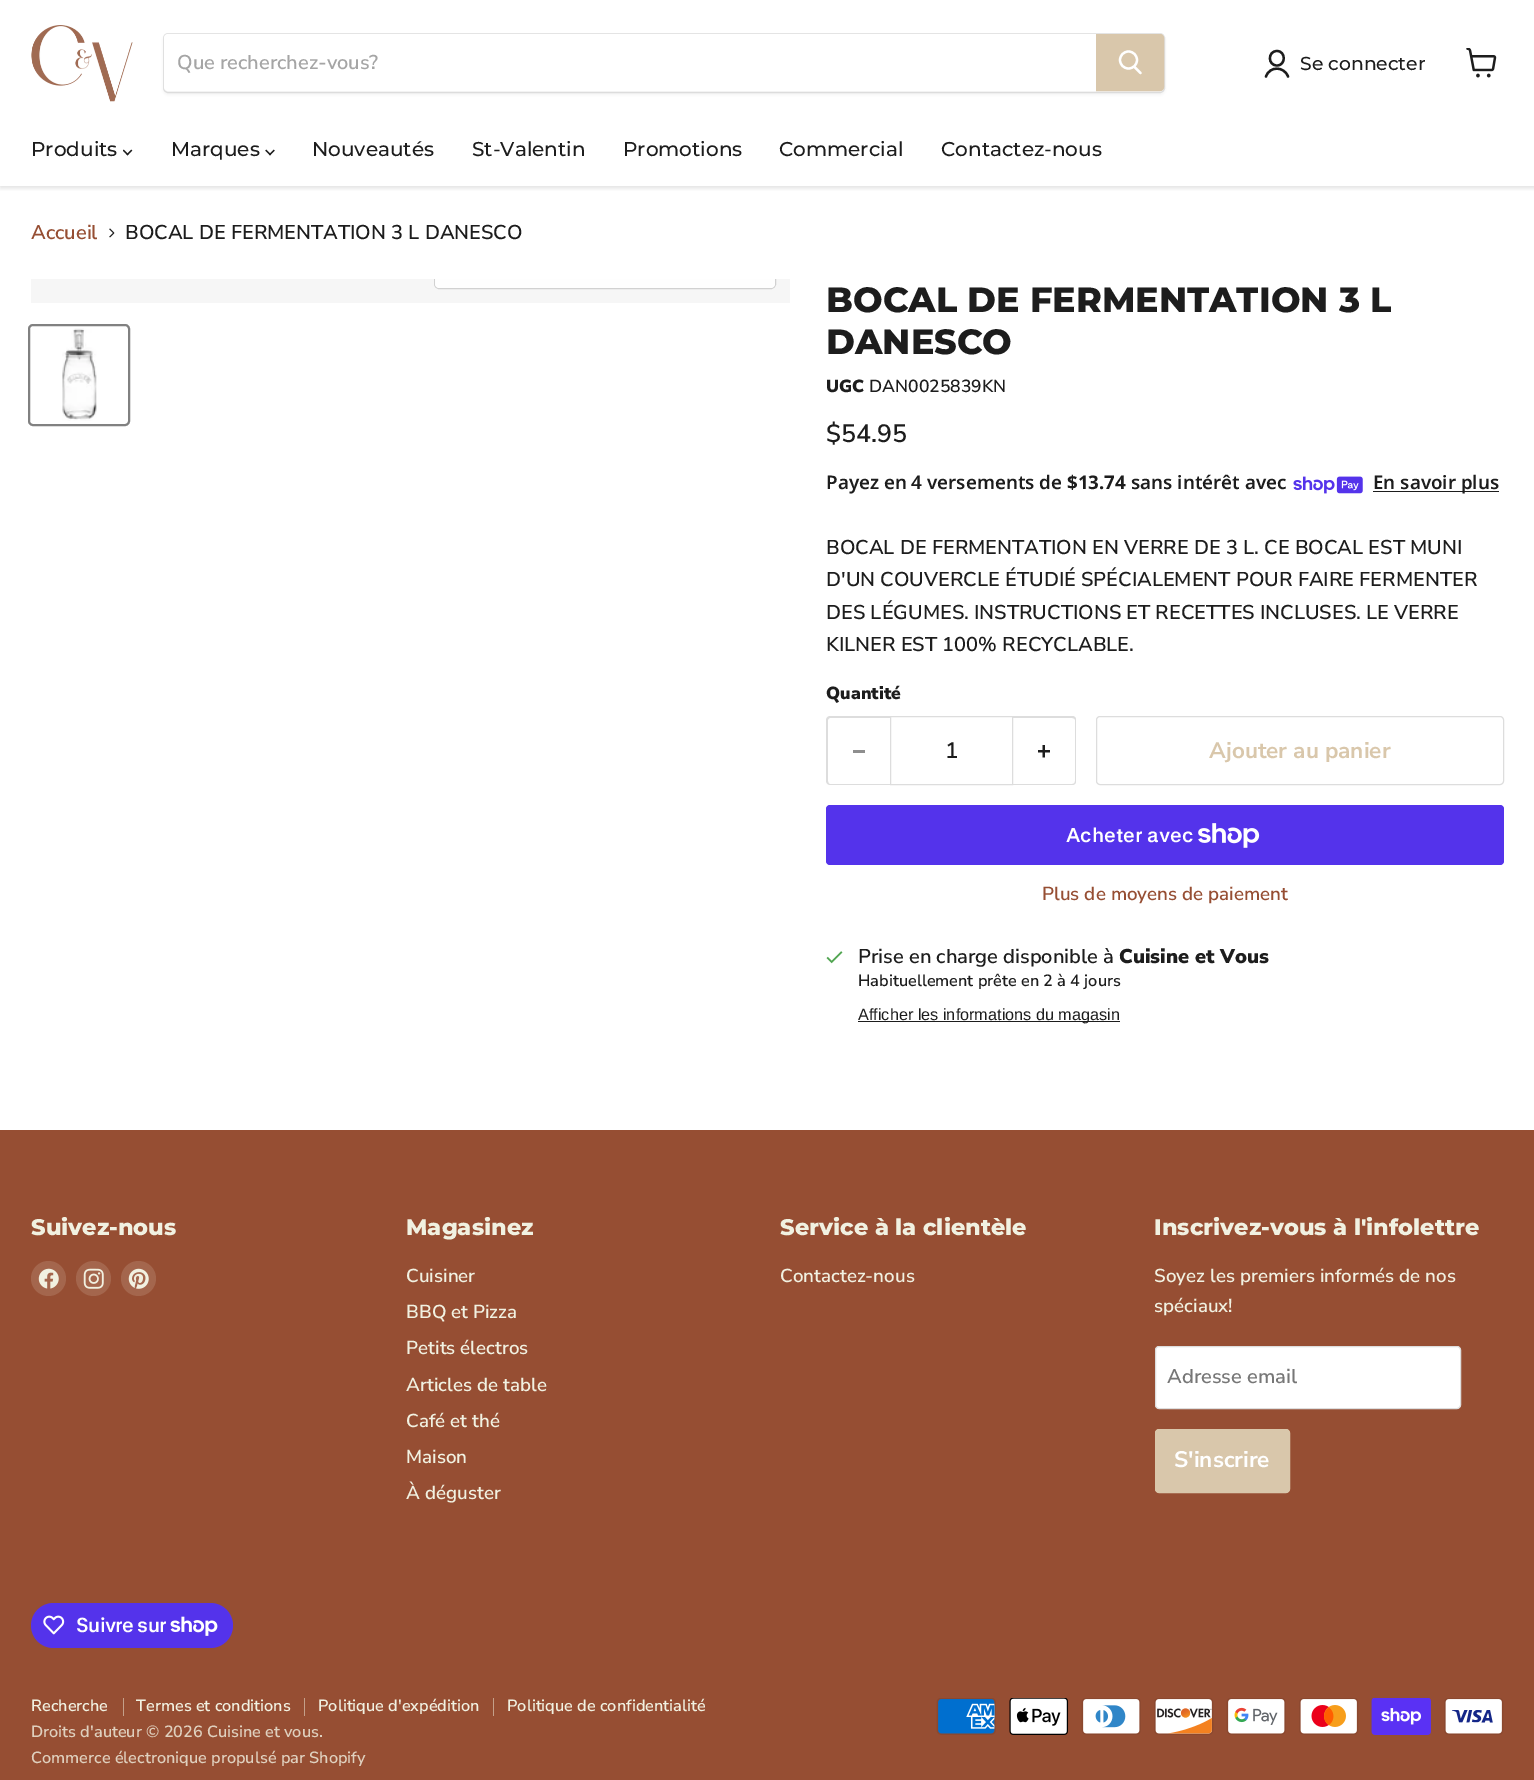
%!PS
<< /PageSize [1534 1780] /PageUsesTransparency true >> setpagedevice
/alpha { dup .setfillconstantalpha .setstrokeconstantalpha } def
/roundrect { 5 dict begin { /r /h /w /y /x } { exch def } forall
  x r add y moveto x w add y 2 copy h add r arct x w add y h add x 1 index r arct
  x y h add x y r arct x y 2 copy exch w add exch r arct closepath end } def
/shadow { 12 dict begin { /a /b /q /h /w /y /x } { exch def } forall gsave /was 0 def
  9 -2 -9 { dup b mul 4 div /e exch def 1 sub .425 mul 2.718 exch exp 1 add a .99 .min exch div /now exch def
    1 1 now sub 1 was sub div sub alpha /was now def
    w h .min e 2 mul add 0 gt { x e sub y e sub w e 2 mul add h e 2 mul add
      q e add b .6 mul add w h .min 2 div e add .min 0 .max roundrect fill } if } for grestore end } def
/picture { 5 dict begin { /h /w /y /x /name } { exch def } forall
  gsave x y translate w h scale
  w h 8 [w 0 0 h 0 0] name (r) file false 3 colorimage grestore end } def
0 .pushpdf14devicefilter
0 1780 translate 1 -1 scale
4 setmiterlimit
1 setgray
0 0 1534 1780 rectfill
gsave
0 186 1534 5 rectclip
0.502 setgray
0 1 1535 187 0 2.5 0.25 shadow
grestore
(img1.rgb) 31 25 102 77 picture
0.502 setgray
163 35 1002 60 5 2 0.11 shadow
0.2 alpha
163.5 33.5 1001 59 4.5 roundrect stroke
1 alpha
1 setgray
newpath 168 34 moveto 1096 34 lineto 1096 91 lineto 168 91 lineto 166 91 164 89 164 87 curveto 164 38 lineto 164 36 166 34 168 34 curveto closepath fill
/NunitoSans-SemiBold [20 0 0 -20 0 0] selectfont
0.647 setgray
177 69 moveto (Que recherchez-vous?) show
0.851 0.78 0.671 setrgbcolor
newpath 1096.5 34.5 moveto 1160 34.5 lineto 1162 34.5 1163.5 36 1163.5 38 curveto 1163.5 87 lineto 1163.5 89 1162 90.5 1160 90.5 curveto 1096.5 90.5 lineto closepath gsave fill grestore
stroke
1 setgray
2.2 setlinewidth
1 setlinecap
newpath 1140.5 73 moveto 1134.5 67 lineto stroke
0 setlinecap
newpath 1128.5 60 8.5 0 360 arc closepath stroke
0.114 setgray
2.3 setlinewidth
1 setlinecap
1 setlinejoin
newpath 1277 65.5 moveto 1286 65.5 1286 51 1277 51 curveto 1267.5 51 1267.5 65.5 1277 65.5 curveto closepath 1288 76.5 moveto 1284 66 1269.5 66 1266 76.5 curveto stroke
/Montserrat-Thin [18.75 0 0 -18.75 0 0] selectfont
1300 70 moveto (Se connecter) show
(img2.rgb) 1466 48 31 30 picture
/Montserrat-Thin [20 0 0 -20 0 0] selectfont
31 156 moveto (Produits) show
(img3.rgb) 123 149 10 7 picture
171 156 moveto (Marques) show
(img4.rgb) 265 149 10 7 picture
312 156 moveto (Nouveautés) show
472 156 moveto (St-Valentin) show
623 156 moveto (Promotions) show
779 156 moveto (Commercial) show
941 156 moveto (Contactez-nous) show
/NunitoSans-SemiBold [20 0 0 -20 0 0] selectfont
0.588 0.306 0.2 setrgbcolor
31 239 moveto (Accueil) show
(img5.rgb) 109 228 6 10 picture
0.114 setgray
125 239 moveto (BOCAL DE FERMENTATION 3 L DANESCO) show
0.965 setgray
31 279 759 24 rectfill
gsave
31 279 759 24 rectclip
0.82 setgray
1 setlinewidth
0 setlinecap
0 setlinejoin
434.5 251.5 341 37 4.5 roundrect stroke
grestore
0.9 alpha
1 setgray
newpath 435 279 moveto 775 279 lineto 775 284 lineto 775 286 773 288 771 288 curveto 439 288 lineto 437 288 435 286 435 284 curveto closepath fill
1 alpha
0.506 setgray
2 setlinewidth
0 setlinecap
0 setlinejoin
29 325 100 100 4 roundrect stroke
(img6.rgb) 62 328 35 93 picture
/Montserrat-ExtraBold [35 0 0 -35 0 0] selectfont
0.114 setgray
826 312 moveto (BOCAL DE FERMENTATION 3 L) show
826 354 moveto (DANESCO) show
/NunitoSans-Black [17.5 0 0 -17.5 0 0] selectfont
826 392 moveto (UGC) show
/NunitoSans-SemiBold [17.5 0 0 -17.5 0 0] selectfont
869 392 moveto (DAN0025839KN) show
/NunitoSans-SemiBold [25 0 0 -25 0 0] selectfont
826 442 moveto ($54.95) show
/NotoSans-SemiBold [18.75 0 0 -18.75 0 0] selectfont
826 489 moveto (Payez en 4 versements de) show
/NotoSans-Bold [18.75 0 0 -18.75 0 0] selectfont
1067 489 moveto ($13.74) show
/NotoSans-SemiBold [18.75 0 0 -18.75 0 0] selectfont
1131 489 moveto (sans intérêt avec) show
(img7.rgb) 1293 476 70 18 picture
1373 491 126 1 rectfill
1373 489 moveto (En savoir plus) show
/NunitoSans-SemiBold [20 0 0 -20 0 0] selectfont
826 554 moveto (BOCAL DE FERMENTATION EN VERRE DE 3 L. CE BOCAL EST MUNI) show
826 586 moveto (D'UN COUVERCLE ÉTUDIÉ SPÉCIALEMENT POUR FAIRE FERMENTER) show
826 619 moveto (DES LÉGUMES. INSTRUCTIONS ET RECETTES INCLUSES. LE VERRE) show
826 651 moveto (KILNER EST 100% RECYCLABLE.) show
/NunitoSans-Black [17.5 0 0 -17.5 0 0] selectfont
826 699 moveto (Quantité) show
0.867 setgray
newpath 830 716 moveto 890 716 lineto 890 785 lineto 830 785 lineto 828 785 826 783 826 781 curveto 826 720 lineto 826 718 828 716 830 716 curveto closepath 830 718 moveto 890 718 lineto 890 784 lineto 830 784 lineto 829 784 828 783 828 781 curveto 828 720 lineto 828 719 829 718 830 718 curveto closepath eofill
0.557 setgray
853 750 12 3 rectfill
0.867 setgray
1 setlinewidth
890.5 716.5 122 68 rectstroke
/NunitoSans-SemiBold [22.5 0 0 -22.5 0 0] selectfont
0.114 setgray
945 758 moveto (1) show
0.867 setgray
newpath 1012 716 moveto 1072 716 lineto 1075 716 1076 718 1076 720 curveto 1076 781 lineto 1076 783 1075 785 1072 785 curveto 1012 785 lineto closepath 1012 718 moveto 1072 718 lineto 1074 718 1075 719 1075 720 curveto 1075 781 lineto 1075 783 1074 784 1072 784 curveto 1012 784 lineto closepath eofill
(img8.rgb) 1038 745 12 13 picture
1096.5 716.5 407 68 3.5 roundrect stroke
/NunitoSans-Bold [22.5 0 0 -22.5 0 0] selectfont
0.851 0.78 0.671 setrgbcolor
1209 758 moveto (Ajouter au panier) show
0.329 0.2 0.922 setrgbcolor
826 805 678 60 4 roundrect fill
/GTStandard-SemiBold [20 0 0 -20 0 0] selectfont
1 setgray
1066 842 moveto (Acheter avec) show
(img9.rgb) 1198 823 62 25 picture
/NunitoSans-SemiBold [18.75 0 0 -18.75 0 0] selectfont
0.588 0.306 0.2 setrgbcolor
1042 900 moveto (Plus de moyens de paiement) show
(img10.rgb) 826 951 17 13 picture
/NunitoSans-SemiBold [20 0 0 -20 0 0] selectfont
0.114 setgray
858 963 moveto (Prise en charge disponible à) show
/NunitoSans-Black [20 0 0 -20 0 0] selectfont
1119 963 moveto (Cuisine et Vous) show
/NunitoSans-SemiBold [16.25 0 0 -16.25 0 0] selectfont
858 986 moveto (Habituellement prête en 2 à 4 jours) show
858 1021 262 1 rectfill
/LiberationSans-Regular [16.25 0 0 -16.25 0 0] selectfont
858 1020 moveto (Afficher les informations du magasin) show
0.588 0.306 0.2 setrgbcolor
0 1130 1534 650 rectfill
/Montserrat-ExtraBold [22.5 0 0 -22.5 0 0] selectfont
0.945 0.945 0.882 setrgbcolor
31 1235 moveto (Suivez-nous) show
0.643 0.4 0.302 setrgbcolor
newpath 48.5 1278.5 17.5 0 360 arc closepath fill
(img11.rgb) 38 1268 21 21 picture
newpath 93.5 1278.5 17.5 0 360 arc closepath fill
(img12.rgb) 83 1268 21 21 picture
newpath 138.5 1278.5 17.5 0 360 arc closepath fill
(img13.rgb) 128 1268 21 21 picture
0.945 0.945 0.882 setrgbcolor
406 1235 moveto (Magasinez) show
/NunitoSans-SemiBold [18.75 0 0 -18.75 0 0] selectfont
406 1282 moveto (Cuisiner) show
406 1318 moveto (BBQ et Pizza) show
406 1354 moveto (Petits électros) show
406 1391 moveto (Articles de table) show
406 1427 moveto (Café et thé) show
406 1463 moveto (Maison) show
406 1499 moveto (À déguster) show
/Montserrat-ExtraBold [22.5 0 0 -22.5 0 0] selectfont
780 1235 moveto (Service à la clientèle) show
/NunitoSans-SemiBold [18.75 0 0 -18.75 0 0] selectfont
780 1282 moveto (Contactez-nous) show
/Montserrat-ExtraBold [22.5 0 0 -22.5 0 0] selectfont
1154 1235 moveto (Inscrivez-vous à l'infolettre) show
/NunitoSans-SemiBold [18.75 0 0 -18.75 0 0] selectfont
1154 1282 moveto (Soyez les premiers informés de nos) show
1154 1312 moveto (spéciaux!) show
1 setgray
1155.5 1346.5 305 62 3.5 roundrect gsave fill grestore
0.867 setgray
stroke
/NunitoSans-SemiBold [20 0 0 -20 0 0] selectfont
0.467 setgray
1167 1383 moveto (Adresse email) show
0.851 0.78 0.671 setrgbcolor
1155.5 1429.5 134 63 3.5 roundrect gsave fill grestore
stroke
/NunitoSans-Bold [22.5 0 0 -22.5 0 0] selectfont
1 setgray
1174 1467 moveto (S'inscrire) show
0.329 0.2 0.922 setrgbcolor
31 1603 202 45 22.5 roundrect fill
(img14.rgb) 43 1615 22 20 picture
/GTStandard-SemiBold [20 0 0 -20 0 0] selectfont
1 setgray
76 1632 moveto -0.6 0 (Suivre sur) ashow
(img15.rgb) 170 1616 48 20 picture
0.769 0.627 0.541 setrgbcolor
123 1698 1 18 rectfill
/NunitoSans-SemiBold [16.25 0 0 -16.25 0 0] selectfont
0.945 0.945 0.882 setrgbcolor
31 1711 moveto (Recherche) show
0.769 0.627 0.541 setrgbcolor
304 1698 1 18 rectfill
0.945 0.945 0.882 setrgbcolor
136 1711 moveto (Termes et conditions) show
0.769 0.627 0.541 setrgbcolor
493 1698 1 18 rectfill
0.945 0.945 0.882 setrgbcolor
318 1711 moveto (Politique d'expédition) show
507 1711 moveto (Politique de confidentialité) show
0.875 0.816 0.745 setrgbcolor
31 1737 moveto (Droits d'auteur © 2026 Cuisine et vous.) show
31 1763 moveto (Commerce électronique propulsé par Shopify) show
(img16.rgb) 936 1698 60 37 picture
(img17.rgb) 1009 1698 60 37 picture
(img18.rgb) 1081 1698 60 37 picture
(img19.rgb) 1154 1698 60 37 picture
(img20.rgb) 1226 1698 60 37 picture
(img21.rgb) 1299 1698 60 37 picture
(img22.rgb) 1371 1698 60 37 picture
(img23.rgb) 1444 1698 60 37 picture
.poppdf14devicefilter showpage
